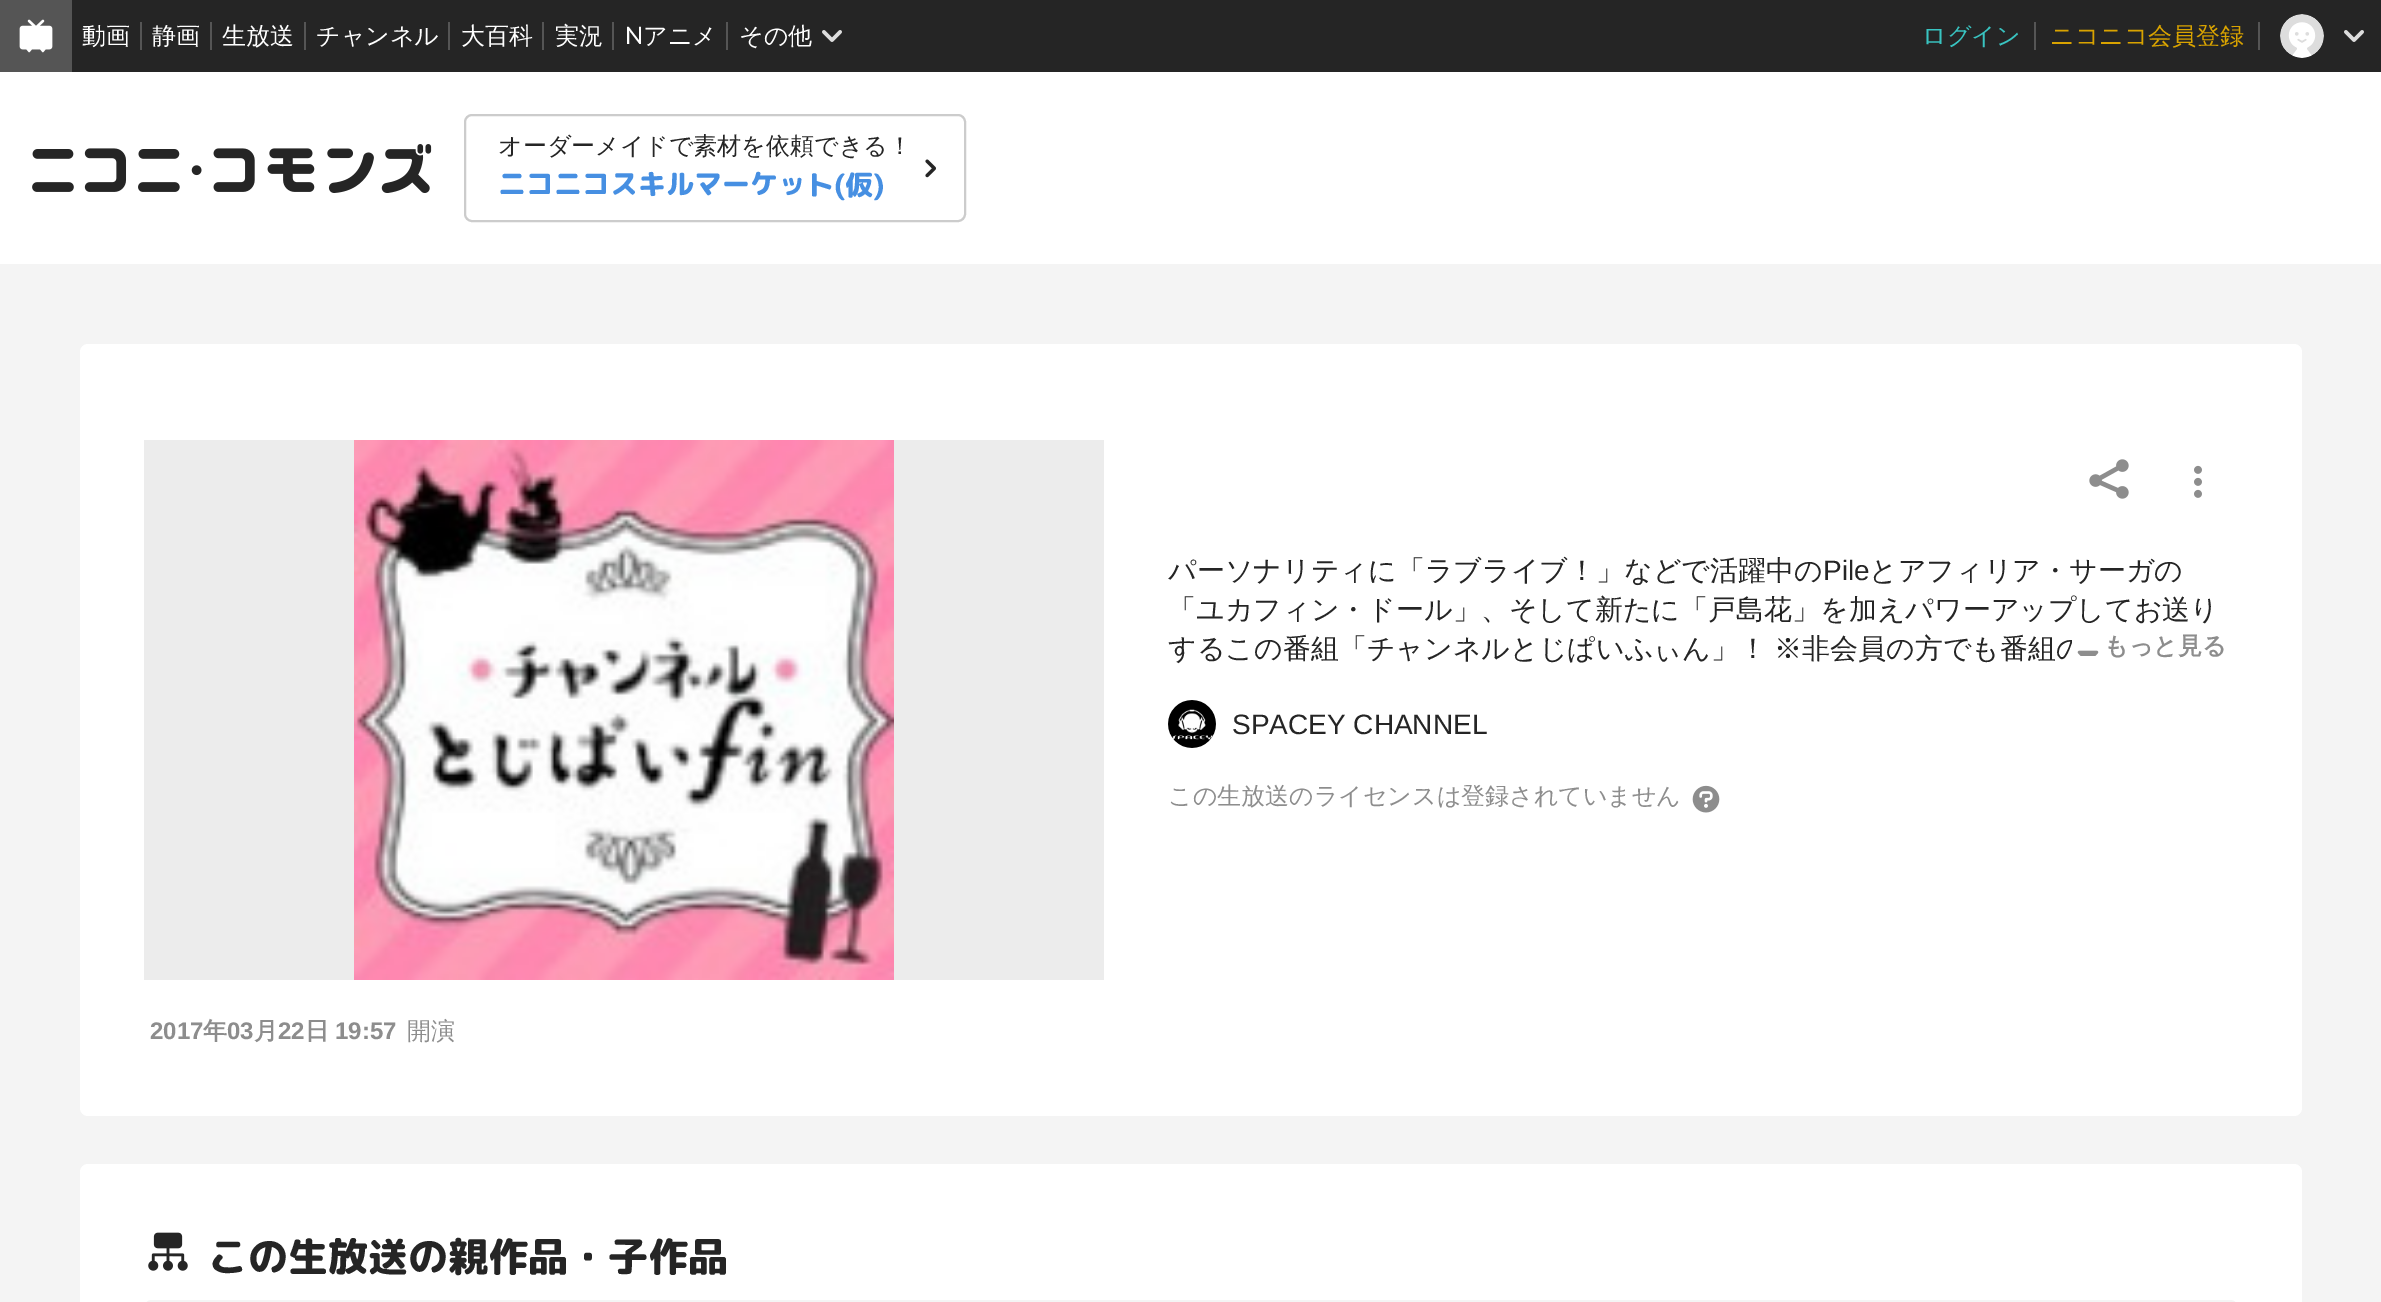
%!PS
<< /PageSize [2381 1302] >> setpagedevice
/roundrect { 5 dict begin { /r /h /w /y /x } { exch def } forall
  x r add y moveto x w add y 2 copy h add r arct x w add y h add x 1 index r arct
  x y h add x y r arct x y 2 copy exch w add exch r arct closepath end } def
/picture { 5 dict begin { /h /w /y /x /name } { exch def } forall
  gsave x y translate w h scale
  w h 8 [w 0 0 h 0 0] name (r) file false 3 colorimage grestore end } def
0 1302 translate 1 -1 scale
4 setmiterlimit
0.957 setgray
0 0 2381 1302 rectfill
0.145 setgray
72 0 2309 72 rectfill
0.333 setgray
0 0 72 72 rectfill
(img1.rgb) 19 19 34 34 picture
/WenQuanYiZenHei-Medium [24 0 0 -24 0 0] selectfont
1 setgray
82 44 moveto (動画) show
0.333 setgray
140 22 2 28 rectfill
1 setgray
152 44 moveto (静画) show
0.333 setgray
210 22 2 28 rectfill
1 setgray
222 44 moveto (生放送) show
0.333 setgray
304 22 2 28 rectfill
1 setgray
316 44 moveto (チャンネル) show
0.333 setgray
448 22 2 28 rectfill
1 setgray
461 44 moveto (大百科) show
0.333 setgray
542 22 2 28 rectfill
1 setgray
555 44 moveto (実況) show
0.333 setgray
612 22 2 28 rectfill
/Lato-Regular [24 0 0 -24 0 0] selectfont
1 setgray
625 44 moveto (N) show
/WenQuanYiZenHei-Medium [24 0 0 -24 0 0] selectfont
643 44 moveto (アニメ) show
0.333 setgray
726 22 2 28 rectfill
1 setgray
739 44 moveto (その他) show
(img2.rgb) 822 30 20 12 picture
0.224 0.769 0.757 setrgbcolor
1922 44 moveto (ログイン) show
0.333 setgray
2034 22 2 28 rectfill
0.851 0.639 0 setrgbcolor
2050 44 moveto (ニコニコ会員登録) show
0.333 setgray
2258 22 2 28 rectfill
(img3.rgb) 2280 14 44 44 picture
(img2.rgb) 2344 30 20 12 picture
1 setgray
0 72 2381 192 rectfill
(img4.rgb) 32 144 400 49 picture
0.8 setgray
2 setlinewidth
465 115 500 106 7 roundrect stroke
0.145 setgray
498 154 moveto (オーダーメイドで素材を依頼できる！) show
/RoundedMplus1c-ExtraBold [28 0 0 -28 0 0] selectfont
0.275 0.561 0.886 setrgbcolor
gsave 498 194 translate 0.1 rotate 0 0 moveto (ニコニコスキルマーケット\(仮\)) show grestore
(img5.rgb) 925 159 11 19 picture
1 setgray
80 344 2222 772 8 roundrect fill
0.925 setgray
144 440 960 540 rectfill
(img6.rgb) 354 440 540 540 picture
(img7.rgb) 2089 459 40 40 picture
(img8.rgb) 2194 465 8 33 picture
/WenQuanYiZenHei-Medium [28 0 0 -28 0 0] selectfont
0.145 setgray
1168 580 moveto (パーソナリティに「ラブライブ！」などで活躍中の) show
/LiberationSans-Regular [28 0 0 -28 0 0] selectfont
1823 580 moveto (Pile) show
/WenQuanYiZenHei-Medium [28 0 0 -28 0 0] selectfont
1869 580 moveto (とアフィリア・サーガの) show
1168 619 moveto (「ユカフィン・ドール」、そして新たに「戸島花」を加えパワーアップしてお送り) show
1168 658 moveto (するこの番組「チャンネルとじぱいふぃん」！) show
1774 658 moveto (※非会員の方でも番組の) show
1 setgray
2072 639 11 22 rectfill
(img9.rgb) 2077 650 22 6 picture
/WenQuanYiZenHei-Bold [24 0 0 -24 0 0] selectfont
0.553 setgray
2104 654 moveto (もっと見る) show
(img10.rgb) 1168 700 48 48 picture
/LiberationSans-Regular [28 0 0 -28 0 0] selectfont
0.145 setgray
1232 734 moveto (SPACEY CHANNEL) show
/WenQuanYiZenHei-Medium [24 0 0 -24 0 0] selectfont
0.553 setgray
1168 804 moveto (この生放送のライセンスは登録されていません) show
(img11.rgb) 1692 785 28 28 picture
/LiberationSans-Bold [24 0 0 -24 0 0] selectfont
150 1039 moveto (2017) show
/WenQuanYiZenHei-Bold [24 0 0 -24 0 0] selectfont
203 1039 moveto (年) show
/LiberationSans-Bold [24 0 0 -24 0 0] selectfont
227 1039 moveto (03) show
/WenQuanYiZenHei-Bold [24 0 0 -24 0 0] selectfont
254 1039 moveto (月) show
/LiberationSans-Bold [24 0 0 -24 0 0] selectfont
278 1039 moveto (22) show
/WenQuanYiZenHei-Bold [24 0 0 -24 0 0] selectfont
305 1039 moveto (日) show
/LiberationSans-Bold [24 0 0 -24 0 0] selectfont
335 1039 moveto (19:57) show
/WenQuanYiZenHei-Medium [24 0 0 -24 0 0] selectfont
407 1039 moveto (開演) show
1 setgray
80 1164 2222 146 8 roundrect fill
(img12.rgb) 148 1232 40 39 picture
/RoundedMplus1c-ExtraBold [40 0 0 -40 0 0] selectfont
0.145 setgray
gsave 208 1271 translate 0.1 rotate 0 0 moveto (この) show grestore
gsave 288 1271 translate 0.1 rotate 0 0 moveto (生放送) show grestore
gsave 408 1271 translate 0.1 rotate 0 0 moveto (の親作品・子作品) show grestore
0.957 setgray
144 1300 2094 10 8 roundrect fill
showpage
